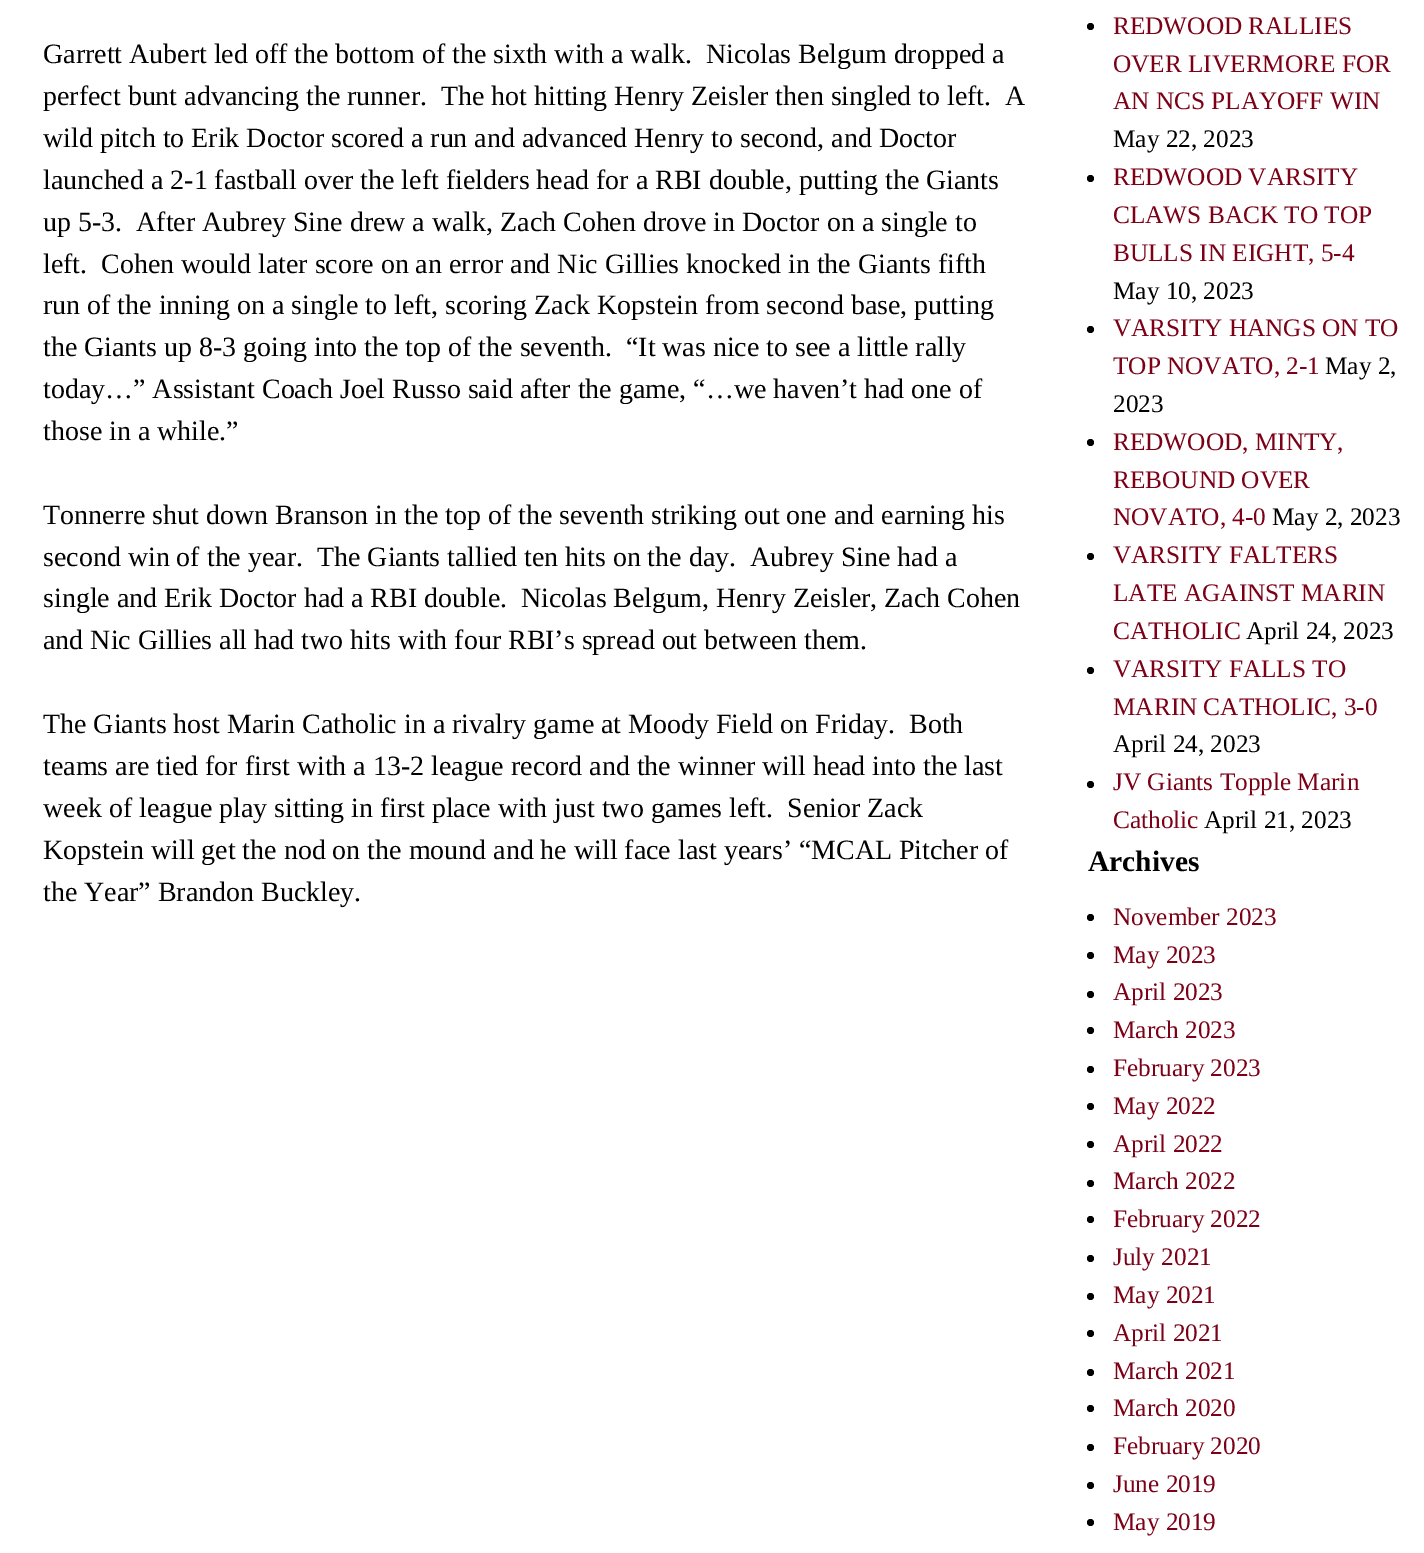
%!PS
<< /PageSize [1424 1553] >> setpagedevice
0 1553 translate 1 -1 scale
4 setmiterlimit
1 setgray
0 0 1424 1553 rectfill
/LiberationSerif-Regular [27.95 0 0 -27.95 0 0] selectfont
0 setgray
43 63 moveto (Garrett Aubert led off the bottom of the sixth with a walk.  Nicolas Belgum dropped a) show
43 105 moveto (perfect bunt advancing the runner.  The hot hitting Henry Zeisler then singled to left.  A) show
43 147 moveto (wild pitch to Erik Doctor scored a run and advanced Henry to second, and Doctor) show
43 189 moveto (launched a 2-1 fastball over the left fielders head for a RBI double, putting the Giants) show
43 231 moveto (up 5-3.  After Aubrey Sine drew a walk, Zach Cohen drove in Doctor on a single to) show
43 273 moveto (left.  Cohen would later score on an error and Nic Gillies knocked in the Giants fifth) show
43 314 moveto (run of the inning on a single to left, scoring Zack Kopstein from second base, putting) show
43 356 moveto (the Giants up 8-3 going into the top of the seventh.  “It was nice to see a little rally) show
43 398 moveto (today…” Assistant Coach Joel Russo said after the game, “…we haven’t had one of) show
43 440 moveto (those in a while.”) show
43 524 moveto (Tonnerre shut down Branson in the top of the seventh striking out one and earning his) show
43 566 moveto (second win of the year.  The Giants tallied ten hits on the day.  Aubrey Sine had a) show
43 607 moveto (single and Erik Doctor had a RBI double.  Nicolas Belgum, Henry Zeisler, Zach Cohen) show
43 649 moveto (and Nic Gillies all had two hits with four RBI’s spread out between them.) show
43 733 moveto (The Giants host Marin Catholic in a rivalry game at Moody Field on Friday.  Both) show
43 775 moveto (teams are tied for first with a 13-2 league record and the winner will head into the last) show
43 817 moveto (week of league play sitting in first place with just two games left.  Senior Zack) show
43 859 moveto (Kopstein will get the nod on the mound and he will face last years’ “MCAL Pitcher of) show
43 901 moveto (the Year” Brandon Buckley.) show
newpath 1090.5 26.5 3.5 0 360 arc closepath fill
/LiberationSerif-Regular [25.25 0 0 -25.25 0 0] selectfont
0.486 0 0.086 setrgbcolor
1113 34 moveto (REDWOOD RALLIES) show
1113 72 moveto (OVER LIVERMORE FOR) show
1113 109 moveto (AN NCS PLAYOFF WIN) show
0 setgray
1113 147 moveto (May 22, 2023) show
newpath 1090.5 178.5 3.5 0 360 arc closepath fill
0.486 0 0.086 setrgbcolor
1113 185 moveto (REDWOOD VARSITY) show
1113 223 moveto (CLAWS BACK TO TOP) show
1113 261 moveto (BULLS IN EIGHT, 5-4) show
0 setgray
1113 299 moveto (May 10, 2023) show
newpath 1090.5 329.5 3.5 0 360 arc closepath fill
0.486 0 0.086 setrgbcolor
1113 336 moveto (VARSITY HANGS ON TO) show
1113 374 moveto (TOP NOVATO, 2-1) show
0 setgray
1325 374 moveto (May 2,) show
1113 412 moveto (2023) show
newpath 1090.5 442.5 3.5 0 360 arc closepath fill
0.486 0 0.086 setrgbcolor
1113 450 moveto (REDWOOD, MINTY,) show
1113 488 moveto (REBOUND OVER) show
1113 525 moveto (NOVATO, 4-0) show
0 setgray
1272 525 moveto (May 2, 2023) show
newpath 1090.5 556.5 3.5 0 360 arc closepath fill
0.486 0 0.086 setrgbcolor
1113 563 moveto (VARSITY FALTERS) show
1113 601 moveto (LATE AGAINST MARIN) show
1113 639 moveto (CATHOLIC) show
0 setgray
1246 639 moveto (April 24, 2023) show
newpath 1090.5 670.5 3.5 0 360 arc closepath fill
0.486 0 0.086 setrgbcolor
1113 677 moveto (VARSITY FALLS TO) show
1113 715 moveto (MARIN CATHOLIC, 3-0) show
0 setgray
1113 752 moveto (April 24, 2023) show
newpath 1090.5 784.5 3.5 0 360 arc closepath fill
0.486 0 0.086 setrgbcolor
1113 790 moveto (JV Giants Topple Marin) show
1113 828 moveto (Catholic) show
0 setgray
1204 828 moveto (April 21, 2023) show
/LiberationSerif-Bold [29.5 0 0 -29.5 0 0] selectfont
1088 871 moveto (Archives) show
newpath 1090.5 917.5 3.5 0 360 arc closepath fill
/LiberationSerif-Regular [25.25 0 0 -25.25 0 0] selectfont
0.486 0 0.086 setrgbcolor
1113 925 moveto (November 2023) show
0 setgray
newpath 1090.5 955.5 3.5 0 360 arc closepath fill
0.486 0 0.086 setrgbcolor
1113 963 moveto (May 2023) show
0 setgray
newpath 1090.5 994.5 3.5 0 360 arc closepath fill
0.486 0 0.086 setrgbcolor
1113 1000 moveto (April 2023) show
0 setgray
newpath 1090.5 1030.5 3.5 0 360 arc closepath fill
0.486 0 0.086 setrgbcolor
1113 1038 moveto (March 2023) show
0 setgray
newpath 1090.5 1069.5 3.5 0 360 arc closepath fill
0.486 0 0.086 setrgbcolor
1113 1076 moveto (February 2023) show
0 setgray
newpath 1090.5 1106.5 3.5 0 360 arc closepath fill
0.486 0 0.086 setrgbcolor
1113 1114 moveto (May 2022) show
0 setgray
newpath 1090.5 1144.5 3.5 0 360 arc closepath fill
0.486 0 0.086 setrgbcolor
1113 1152 moveto (April 2022) show
0 setgray
newpath 1090.5 1183.5 3.5 0 360 arc closepath fill
0.486 0 0.086 setrgbcolor
1113 1189 moveto (March 2022) show
0 setgray
newpath 1090.5 1219.5 3.5 0 360 arc closepath fill
0.486 0 0.086 setrgbcolor
1113 1227 moveto (February 2022) show
0 setgray
newpath 1090.5 1258.5 3.5 0 360 arc closepath fill
0.486 0 0.086 setrgbcolor
1113 1265 moveto (July 2021) show
0 setgray
newpath 1090.5 1296.5 3.5 0 360 arc closepath fill
0.486 0 0.086 setrgbcolor
1113 1303 moveto (May 2021) show
0 setgray
newpath 1090.5 1333.5 3.5 0 360 arc closepath fill
0.486 0 0.086 setrgbcolor
1113 1341 moveto (April 2021) show
0 setgray
newpath 1090.5 1372.5 3.5 0 360 arc closepath fill
0.486 0 0.086 setrgbcolor
1113 1379 moveto (March 2021) show
0 setgray
newpath 1090.5 1408.5 3.5 0 360 arc closepath fill
0.486 0 0.086 setrgbcolor
1113 1416 moveto (March 2020) show
0 setgray
newpath 1090.5 1447.5 3.5 0 360 arc closepath fill
0.486 0 0.086 setrgbcolor
1113 1454 moveto (February 2020) show
0 setgray
newpath 1090.5 1485.5 3.5 0 360 arc closepath fill
0.486 0 0.086 setrgbcolor
1113 1492 moveto (June 2019) show
0 setgray
newpath 1090.5 1522.5 3.5 0 360 arc closepath fill
0.486 0 0.086 setrgbcolor
1113 1530 moveto (May 2019) show
showpage
